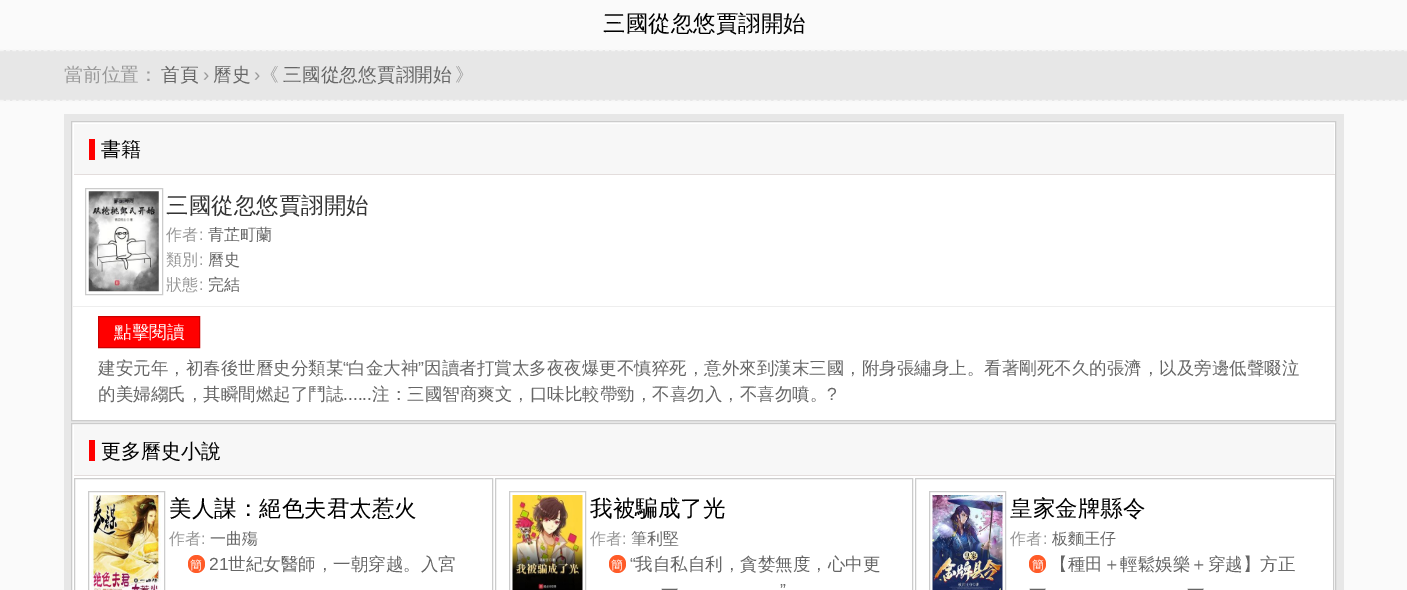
%!PS
<< /PageSize [1407 590] >> setpagedevice
/roundrect { 5 dict begin { /r /h /w /y /x } { exch def } forall
  x r add y moveto x w add y 2 copy h add r arct x w add y h add x 1 index r arct
  x y h add x y r arct x y 2 copy exch w add exch r arct closepath end } def
/picture { 5 dict begin { /h /w /y /x /name } { exch def } forall
  gsave x y translate w h scale
  w h 8 [w 0 0 h 0 0] name (r) file false 3 colorimage grestore end } def
0 590 translate 1 -1 scale
4 setmiterlimit
0.98 setgray
0 0 1407 590 rectfill
/WenQuanYiZenHei-Medium [22.5 0 0 -22.5 0 0] selectfont
0 setgray
603 31 moveto (三國從忽悠賈詡開始) show
0.906 setgray
0 50 1407 51 rectfill
0.961 setgray
1.2 setlinewidth
[3.75 2.49] 0 setdash
newpath 0 50.5 moveto 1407.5 50.5 lineto stroke
newpath 0 100.5 moveto 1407.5 100.5 lineto stroke
/WenQuanYiZenHei-Medium [18.75 0 0 -18.75 0 0] selectfont
0.6 setgray
64 81 moveto (當前位置：) show
0.4 setgray
161 81 moveto (首頁) show
/LiberationSans-Regular [18.75 0 0 -18.75 0 0] selectfont
0.6 setgray
203 81 moveto (›) show
/WenQuanYiZenHei-Medium [18.75 0 0 -18.75 0 0] selectfont
0.4 setgray
213 81 moveto (曆史) show
/LiberationSans-Regular [18.75 0 0 -18.75 0 0] selectfont
0.6 setgray
254 81 moveto (›) show
/WenQuanYiZenHei-Medium [18.75 0 0 -18.75 0 0] selectfont
260 81 moveto (《) show
0.4 setgray
283 81 moveto (三國從忽悠賈詡開始) show
0.6 setgray
455 81 moveto (》) show
0.906 setgray
64 114 1280 476 rectfill
1 setgray
newpath 71.5 121.5 moveto 1335.5 121.5 lineto 1335.5 420.5 lineto 71.5 420.5 lineto closepath gsave fill grestore
0.8 setgray
1 setlinewidth
[] 0 setdash
stroke
0.969 setgray
74 124 1260 50 rectfill
0.89 0.867 0.863 setrgbcolor
73 174 1262 1 rectfill
1 setgray
73 174 1 1 rectfill
/WenQuanYiZenHei-Medium [20 0 0 -20 0 0] selectfont
0 setgray
101 156 moveto (書籍) show
1 0 0 setrgbcolor
89 139 6 21 rectfill
0.933 setgray
73 306 1262 1 rectfill
0.8 setgray
85.5 188.5 77 106 rectstroke
(img1.rgb) 88 191 71 101 picture
/WenQuanYiZenHei-Medium [22.5 0 0 -22.5 0 0] selectfont
0.2 setgray
166 213 moveto (三國從忽悠賈詡開始) show
/WenQuanYiZenHei-Medium [16 0 0 -16 0 0] selectfont
0.6 setgray
166 240 moveto (作者) show
/LiberationSans-Regular [16 0 0 -16 0 0] selectfont
199 240 moveto (:) show
/WenQuanYiZenHei-Medium [16 0 0 -16 0 0] selectfont
0.4 setgray
208 240 moveto (青芷町蘭) show
0.6 setgray
166 265 moveto (類別) show
/LiberationSans-Regular [16 0 0 -16 0 0] selectfont
199 265 moveto (:) show
/WenQuanYiZenHei-Medium [16 0 0 -16 0 0] selectfont
0.4 setgray
208 265 moveto (曆史) show
0.6 setgray
166 290 moveto (狀態) show
/LiberationSans-Regular [16 0 0 -16 0 0] selectfont
199 290 moveto (:) show
/WenQuanYiZenHei-Medium [16 0 0 -16 0 0] selectfont
0.4 setgray
208 290 moveto (完結) show
1 0 0 setrgbcolor
newpath 98.5 316.5 moveto 199.5 316.5 lineto 199.5 347.5 lineto 98.5 347.5 lineto closepath gsave fill grestore
0.8 0 0 setrgbcolor
stroke
/WenQuanYiZenHei-Medium [17.5 0 0 -17.5 0 0] selectfont
1 setgray
114 338 moveto (點擊閱讀) show
0.4 setgray
98 374 moveto (建安元年，初春後世曆史分類某) show
/LiberationSans-Regular [17.5 0 0 -17.5 0 0] selectfont
343 374 moveto (“) show
/WenQuanYiZenHei-Medium [17.5 0 0 -17.5 0 0] selectfont
348 374 moveto (白金大神) show
/LiberationSans-Regular [17.5 0 0 -17.5 0 0] selectfont
418 374 moveto (”) show
/WenQuanYiZenHei-Medium [17.5 0 0 -17.5 0 0] selectfont
424 374 moveto (因讀者打賞太多夜夜爆更不慎猝死，意外來到漢末三國，附身張繡身上。看著剛死不久的張濟，以及旁邊低聲啜泣) show
98 400 moveto (的美婦縐氏，其瞬間燃起了鬥誌) show
/LiberationSans-Regular [17.5 0 0 -17.5 0 0] selectfont
343 400 moveto (......) show
/WenQuanYiZenHei-Medium [17.5 0 0 -17.5 0 0] selectfont
372 400 moveto (注：三國智商爽文，口味比較帶勁，不喜勿入，不喜勿噴。) show
/LiberationSans-Regular [17.5 0 0 -17.5 0 0] selectfont
827 400 moveto (?) show
1 setgray
newpath 71.5 423.5 moveto 1335.5 423.5 lineto 1335.5 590.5 lineto 71.5 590.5 lineto closepath gsave fill grestore
0.8 setgray
stroke
0.969 setgray
74 425 1260 50 rectfill
0.89 0.867 0.863 setrgbcolor
73 475 1262 1 rectfill
1 setgray
73 475 1 1 rectfill
/WenQuanYiZenHei-Medium [20 0 0 -20 0 0] selectfont
0 setgray
101 458 moveto (更多曆史小說) show
1 0 0 setrgbcolor
89 440 6 21 rectfill
0.8 setgray
74.5 478.5 418 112 rectstroke
88.5 491.5 76 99 rectstroke
(img2.rgb) 91 495 70 95 picture
/WenQuanYiZenHei-Medium [22.5 0 0 -22.5 0 0] selectfont
0 setgray
169 516 moveto (美人謀：絕色夫君太惹火) show
/WenQuanYiZenHei-Medium [16 0 0 -16 0 0] selectfont
0.6 setgray
169 544 moveto (作者) show
/LiberationSans-Regular [16 0 0 -16 0 0] selectfont
201 544 moveto (:) show
/WenQuanYiZenHei-Medium [16 0 0 -16 0 0] selectfont
0.4 setgray
210 544 moveto (一曲殤) show
1 0.357 0.157 setrgbcolor
188 555 17 18 8.5 roundrect fill
/WenQuanYiZenHei-Medium [12 0 0 -12 0 0] selectfont
1 setgray
190 569 moveto (簡) show
/LiberationSans-Regular [17.5 0 0 -17.5 0 0] selectfont
0.4 setgray
209 570 moveto (21) show
/WenQuanYiZenHei-Medium [17.5 0 0 -17.5 0 0] selectfont
228 570 moveto (世紀女醫師，一朝穿越。入宮) show
0.8 setgray
495.5 478.5 417 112 rectstroke
509.5 491.5 76 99 rectstroke
(img3.rgb) 512 495 71 95 picture
/WenQuanYiZenHei-Medium [22.5 0 0 -22.5 0 0] selectfont
0 setgray
590 516 moveto (我被騙成了光) show
/WenQuanYiZenHei-Medium [16 0 0 -16 0 0] selectfont
0.6 setgray
590 544 moveto (作者) show
/LiberationSans-Regular [16 0 0 -16 0 0] selectfont
622 544 moveto (:) show
/WenQuanYiZenHei-Medium [16 0 0 -16 0 0] selectfont
0.4 setgray
631 544 moveto (筆利堅) show
1 0.357 0.157 setrgbcolor
609 555 17 18 8.5 roundrect fill
/WenQuanYiZenHei-Medium [12 0 0 -12 0 0] selectfont
1 setgray
611 569 moveto (簡) show
/LiberationSans-Regular [17.5 0 0 -17.5 0 0] selectfont
0.4 setgray
630 570 moveto (“) show
/WenQuanYiZenHei-Medium [17.5 0 0 -17.5 0 0] selectfont
635 570 moveto (我自私自利，貪婪無度，心中更) show
/LiberationSans-Regular [17.5 0 0 -17.5 0 0] selectfont
780 596 moveto (”) show
/WenQuanYiZenHei-Medium [17.5 0 0 -17.5 0 0] selectfont
661 596 moveto (一) show
0.8 setgray
915.5 478.5 418 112 rectstroke
929.5 491.5 76 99 rectstroke
(img4.rgb) 932 495 71 95 picture
/WenQuanYiZenHei-Medium [22.5 0 0 -22.5 0 0] selectfont
0 setgray
1010 516 moveto (皇家金牌縣令) show
/WenQuanYiZenHei-Medium [16 0 0 -16 0 0] selectfont
0.6 setgray
1010 544 moveto (作者) show
/LiberationSans-Regular [16 0 0 -16 0 0] selectfont
1043 544 moveto (:) show
/WenQuanYiZenHei-Medium [16 0 0 -16 0 0] selectfont
0.4 setgray
1052 544 moveto (板麵王仔) show
1 0.357 0.157 setrgbcolor
1029 555 17 18 8.5 roundrect fill
/WenQuanYiZenHei-Medium [12 0 0 -12 0 0] selectfont
1 setgray
1032 569 moveto (簡) show
/WenQuanYiZenHei-Medium [17.5 0 0 -17.5 0 0] selectfont
0.4 setgray
1050 570 moveto (【種田＋輕鬆娛樂＋穿越】方正) show
1029 596 moveto (一) show
1187 596 moveto (一) show
showpage
